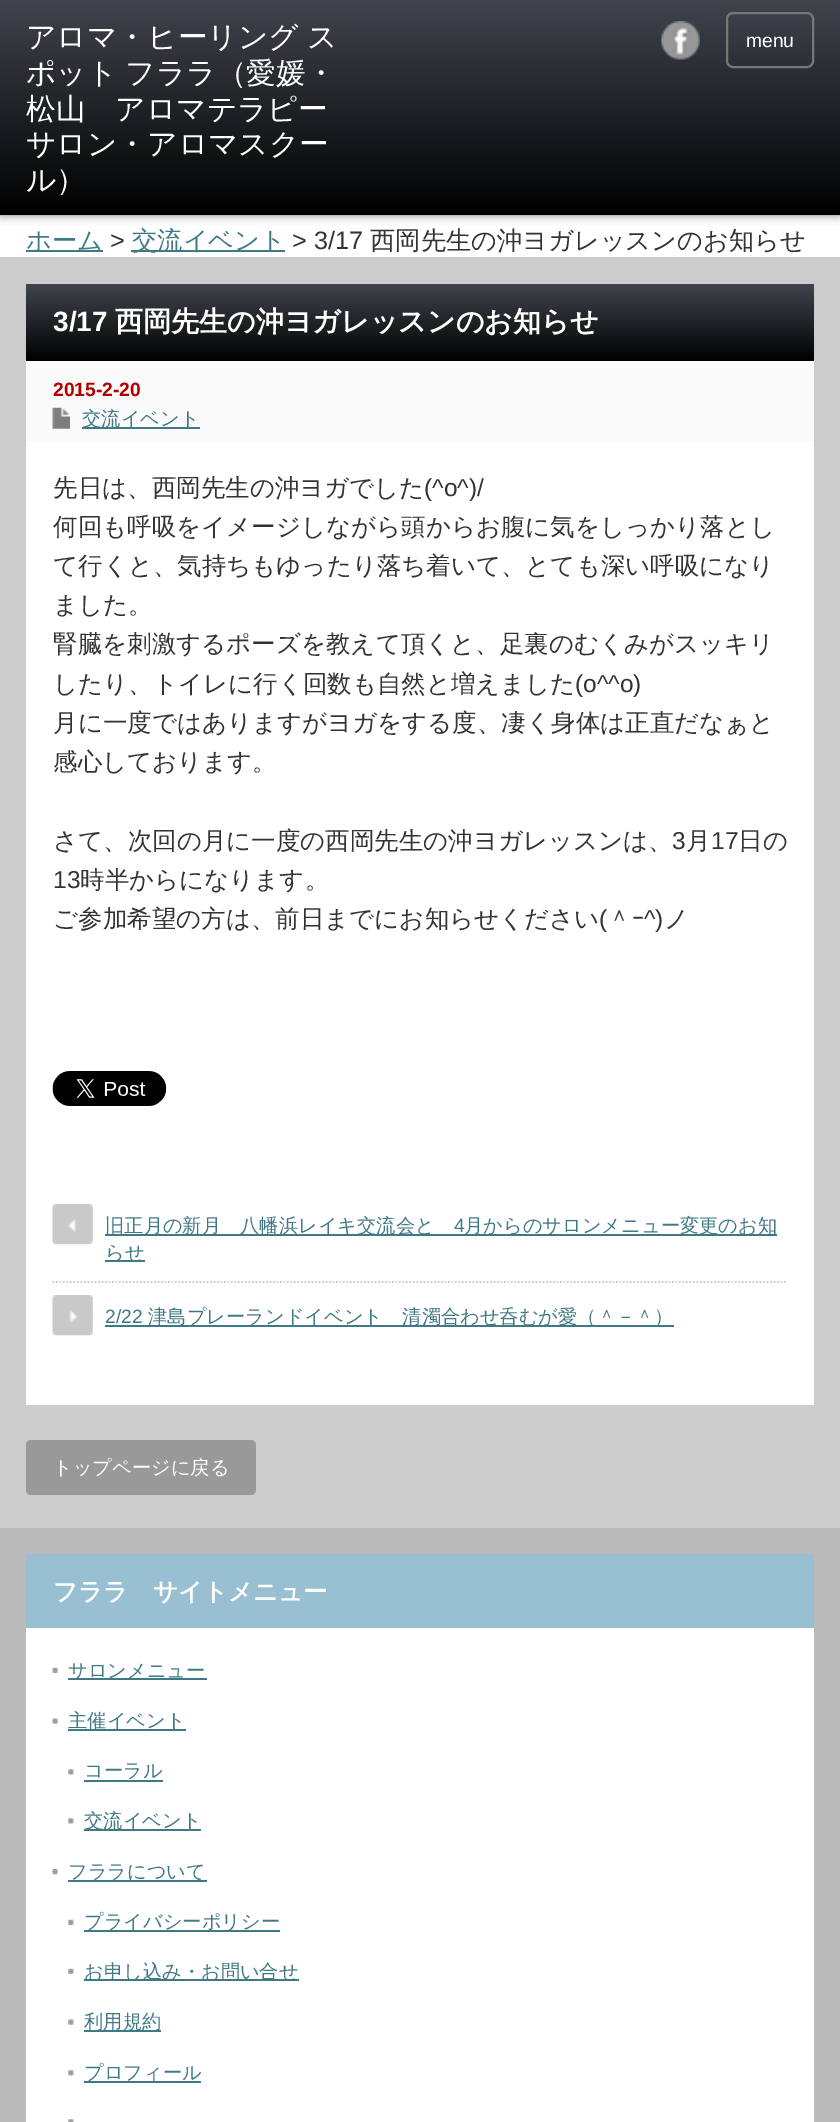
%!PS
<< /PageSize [840 2122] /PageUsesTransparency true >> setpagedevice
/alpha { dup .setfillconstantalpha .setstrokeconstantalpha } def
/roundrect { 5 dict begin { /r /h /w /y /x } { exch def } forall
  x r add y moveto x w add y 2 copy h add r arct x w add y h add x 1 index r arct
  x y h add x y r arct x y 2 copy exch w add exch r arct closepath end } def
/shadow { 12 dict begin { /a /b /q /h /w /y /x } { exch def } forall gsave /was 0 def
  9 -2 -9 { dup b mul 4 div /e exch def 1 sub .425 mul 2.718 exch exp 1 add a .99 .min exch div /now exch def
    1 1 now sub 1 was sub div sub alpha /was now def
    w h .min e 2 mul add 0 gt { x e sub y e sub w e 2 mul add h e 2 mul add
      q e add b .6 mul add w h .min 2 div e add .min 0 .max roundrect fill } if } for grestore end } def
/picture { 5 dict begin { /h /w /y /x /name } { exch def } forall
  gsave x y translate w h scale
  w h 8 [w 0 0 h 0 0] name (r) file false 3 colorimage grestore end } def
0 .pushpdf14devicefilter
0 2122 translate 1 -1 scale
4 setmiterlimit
1 setgray
0 0 840 2122 rectfill
0 setgray
0 0 840 215 0 4.5 0.5 shadow
gsave newpath 0 0 moveto 840 0 lineto 840 215 lineto 0 215 lineto closepath clip newpath
<< /ShadingType 2 /ColorSpace /DeviceRGB /Coords [420 0 420 215] /Extend [true true] /Function << /FunctionType 2 /Domain [0 1] /C0 [0.251 0.267 0.302] /C1 [0 0 0] /N 1 >> >> shfill grestore
/WenQuanYiZenHei-Medium [29.75 0 0 -29.75 0 0] selectfont
1 setgray
26 47 moveto -1 0 32 (アロマ・ヒーリング ス) widthshow
26 83 moveto -1 0 32 (ポット フララ（愛媛・) widthshow
26 119 moveto (松山　アロマテラピー) show
26 154 moveto (サロン・アロマスクー) show
26 190 moveto (ル）) show
(img1.rgb) 661 21 39 39 picture
0.467 setgray
2 setlinewidth
727 13 86 54 6 roundrect stroke
/LiberationSans-Regular [19.25 0 0 -19.25 0 0] selectfont
1 setgray
746 47 moveto (menu) show
0.247 0.475 0.522 setrgbcolor
26 250 77 2 rectfill
/WenQuanYiZenHei-Medium [25.25 0 0 -25.25 0 0] selectfont
26 249 moveto (ホーム) show
/LiberationSans-Regular [25.25 0 0 -25.25 0 0] selectfont
0.2 setgray
110 249 moveto (>) show
0.247 0.475 0.522 setrgbcolor
131 250 154 2 rectfill
/WenQuanYiZenHei-Medium [25.25 0 0 -25.25 0 0] selectfont
132 249 moveto (交流イベント) show
/LiberationSans-Regular [25.25 0 0 -25.25 0 0] selectfont
0.2 setgray
292 249 moveto (> 3/17) show
/WenQuanYiZenHei-Medium [25.25 0 0 -25.25 0 0] selectfont
370 249 moveto (西岡先生の沖ヨガレッスンのお知らせ) show
0.8 setgray
0 257 840 1271 rectfill
gsave newpath 26 284 moveto 814 284 lineto 814 361 lineto 26 361 lineto closepath clip newpath
<< /ShadingType 2 /ColorSpace /DeviceRGB /Coords [26 284 26 361] /Extend [true true] /Function << /FunctionType 2 /Domain [0 1] /C0 [0.251 0.267 0.302] /C1 [0 0 0] /N 1 >> >> shfill grestore
/LiberationSans-Bold [28 0 0 -28 0 0] selectfont
1 setgray
53 331 moveto (3/17) show
/WenQuanYiZenHei-Bold [28 0 0 -28 0 0] selectfont
115 331 moveto (西岡先生の沖ヨガレッスンのお知らせ) show
26 441 788 964 rectfill
0.98 setgray
26 361 788 80 rectfill
/LiberationSans-Bold [19.25 0 0 -19.25 0 0] selectfont
0.698 0 0 setrgbcolor
53 396 moveto (2015-2-20) show
(img2.rgb) 52 407 18 22 picture
0.247 0.475 0.522 setrgbcolor
82 427 118 2 rectfill
/WenQuanYiZenHei-Medium [19.25 0 0 -19.25 0 0] selectfont
82 425 moveto (交流イベント) show
/WenQuanYiZenHei-Medium [24.5 0 0 -24.5 0 0] selectfont
0.2 setgray
53 496 moveto (先日は、西岡先生の沖ヨガでした) show
/LiberationSans-Regular [24.5 0 0 -24.5 0 0] selectfont
424 496 moveto (\(^o^\)/) show
/WenQuanYiZenHei-Medium [24.5 0 0 -24.5 0 0] selectfont
53 535 moveto (何回も呼吸をイメージしながら頭からお腹に気をしっかり落とし) show
53 574 moveto (て行くと、気持ちもゆったり落ち着いて、とても深い呼吸になり) show
53 613 moveto (ました。) show
53 652 moveto (腎臓を刺激するポーズを教えて頂くと、足裏のむくみがスッキリ) show
53 692 moveto (したり、トイレに行く回数も自然と増えました) show
/LiberationSans-Regular [24.5 0 0 -24.5 0 0] selectfont
575 692 moveto (\(o^^o\)) show
/WenQuanYiZenHei-Medium [24.5 0 0 -24.5 0 0] selectfont
53 731 moveto (月に一度ではありますがヨガをする度、凄く身体は正直だなぁと) show
53 770 moveto (感心しております。) show
53 849 moveto (さて、次回の月に一度の西岡先生の沖ヨガレッスンは、) show
/LiberationSans-Regular [24.5 0 0 -24.5 0 0] selectfont
672 849 moveto (3) show
/WenQuanYiZenHei-Medium [24.5 0 0 -24.5 0 0] selectfont
686 849 moveto (月) show
/LiberationSans-Regular [24.5 0 0 -24.5 0 0] selectfont
711 849 moveto (17) show
/WenQuanYiZenHei-Medium [24.5 0 0 -24.5 0 0] selectfont
738 849 moveto (日の) show
/LiberationSans-Regular [24.5 0 0 -24.5 0 0] selectfont
53 888 moveto (13) show
/WenQuanYiZenHei-Medium [24.5 0 0 -24.5 0 0] selectfont
80 888 moveto (時半からになります。) show
53 927 moveto (ご参加希望の方は、前日までにお知らせください) show
/LiberationSans-Regular [24.5 0 0 -24.5 0 0] selectfont
599 927 moveto (\() show
/WenQuanYiZenHei-Medium [24.5 0 0 -24.5 0 0] selectfont
607 927 moveto (＾) show
/IPAGothic-Regular [24.5 0 0 -24.5 0 0] selectfont
632 927 moveto (ｰ) show
/LiberationSans-Regular [24.5 0 0 -24.5 0 0] selectfont
644 927 moveto (^\)) show
/WenQuanYiZenHei-Medium [24.5 0 0 -24.5 0 0] selectfont
664 927 moveto (ノ) show
(img3.rgb) 52 1071 115 35 picture
(img4.rgb) 52 1204 41 41 picture
0.8 setgray
1.8 setlinewidth
[1.75 1.75] 0 setdash
newpath 52.5 1282 moveto 787.5 1282 lineto stroke
0.247 0.475 0.522 setrgbcolor
105 1234 672 2 rectfill
/WenQuanYiZenHei-Medium [19.25 0 0 -19.25 0 0] selectfont
105 1232 moveto (旧正月の新月　八幡浜レイキ交流会と) show
/LiberationSans-Regular [19.25 0 0 -19.25 0 0] selectfont
454 1232 moveto (4) show
/WenQuanYiZenHei-Medium [19.25 0 0 -19.25 0 0] selectfont
464 1232 moveto (月からのサロンメニュー変更のお知) show
105 1260 40 2 rectfill
105 1259 moveto (らせ) show
(img5.rgb) 52 1295 41 41 picture
/LiberationSans-Regular [19.25 0 0 -19.25 0 0] selectfont
105 1323 moveto (2/22) show
105 1325 569 2 rectfill
/WenQuanYiZenHei-Medium [19.25 0 0 -19.25 0 0] selectfont
148 1323 moveto (津島プレーランドイベント　清濁合わせ呑むが愛（＾－＾）) show
0.6 setgray
26 1440 230 55 5 roundrect fill
1 setgray
53 1474 moveto (トップページに戻る) show
0.733 setgray
0 1528 840 594 rectfill
1 setgray
26 1628 788 494 rectfill
0.6 0.749 0.824 setrgbcolor
26 1554 788 74 rectfill
/WenQuanYiZenHei-Bold [24.5 0 0 -24.5 0 0] selectfont
1 setgray
53 1600 moveto (フララ　サイトメニュー) show
(img6.rgb) 52 1667 6 6 picture
0.247 0.475 0.522 setrgbcolor
68 1678 139 2 rectfill
/WenQuanYiZenHei-Medium [19.25 0 0 -19.25 0 0] selectfont
68 1677 moveto (サロンメニュー) show
(img7.rgb) 52 1718 6 6 picture
68 1729 118 2 rectfill
68 1727 moveto (主催イベント) show
(img8.rgb) 68 1769 6 6 picture
84 1777 moveto (コーラル) show
84 1780 79 2 rectfill
(img8.rgb) 68 1818 6 6 picture
84 1829 117 2 rectfill
84 1827 moveto (交流イベント) show
(img9.rgb) 52 1869 6 6 picture
68 1880 139 2 rectfill
68 1878 moveto (フララについて) show
(img10.rgb) 68 1919 6 6 picture
84 1930 196 2 rectfill
84 1928 moveto (プライバシーポリシー) show
(img10.rgb) 68 1968 6 6 picture
84 1979 215 2 rectfill
84 1978 moveto (お申し込み・お問い合せ) show
(img11.rgb) 68 2019 6 6 picture
84 2030 77 2 rectfill
84 2028 moveto (利用規約) show
(img8.rgb) 68 2070 6 6 picture
84 2081 117 2 rectfill
84 2079 moveto (プロフィール) show
(img12.rgb) 68 2119 6 3 picture
.poppdf14devicefilter showpage
